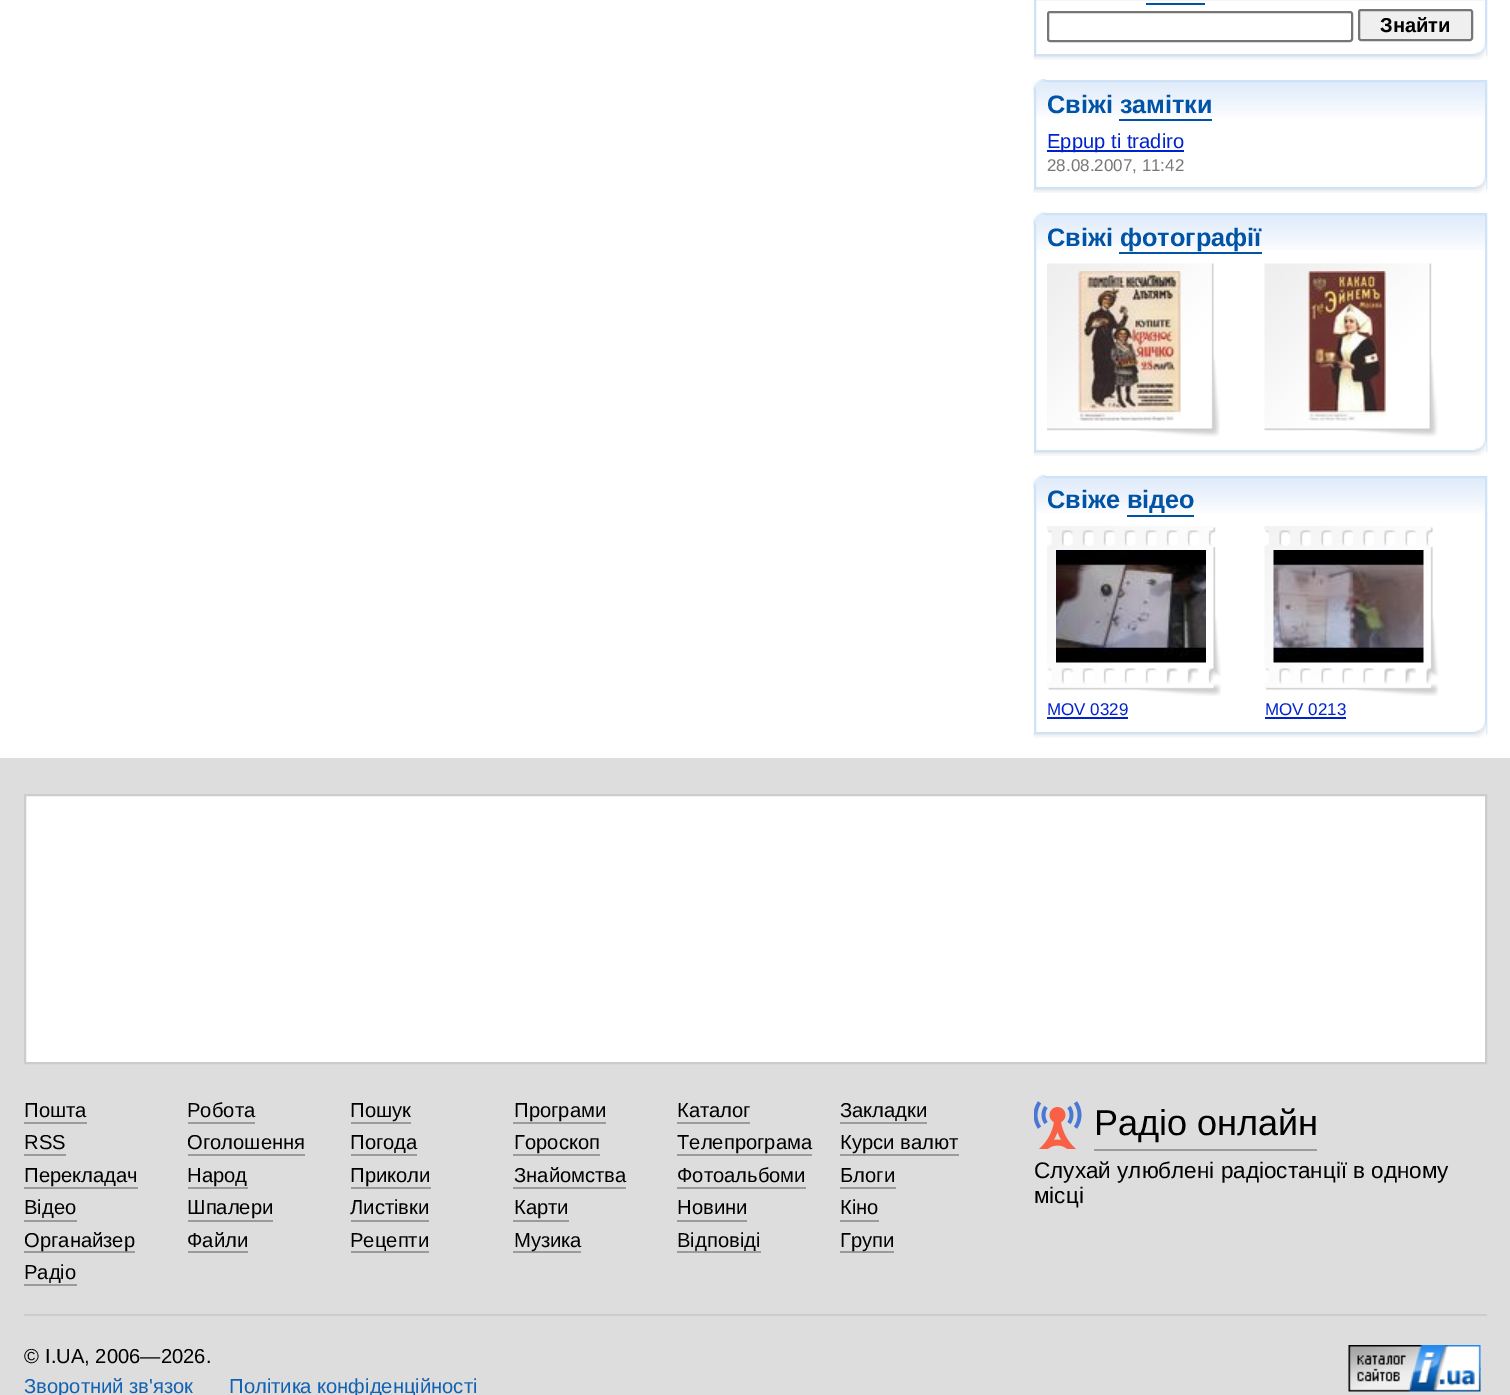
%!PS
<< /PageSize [1510 1395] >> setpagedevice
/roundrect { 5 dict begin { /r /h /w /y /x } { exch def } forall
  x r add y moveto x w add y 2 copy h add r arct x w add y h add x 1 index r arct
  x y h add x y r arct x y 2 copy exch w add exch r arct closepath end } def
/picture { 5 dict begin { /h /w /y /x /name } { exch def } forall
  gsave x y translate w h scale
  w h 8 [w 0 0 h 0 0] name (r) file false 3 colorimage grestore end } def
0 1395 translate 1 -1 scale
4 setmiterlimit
1 setgray
0 0 1510 1395 rectfill
(img1.rgb) 1033 55 454 5 picture
0.808 0.89 0.969 setrgbcolor
2 setlinewidth
1035 -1 451 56 rectstroke
0 0.325 0.647 setrgbcolor
1146 3 59 2 rectfill
0.463 setgray
1048 12 304 29 2 roundrect stroke
0.937 setgray
1359 10 113 30 2 roundrect gsave fill grestore
0.463 setgray
stroke
/LiberationSans-Bold [20.2 0 0 -20.2 0 0] selectfont
0 setgray
1380 32 moveto (Знайти) show
(img2.rgb) 1474 43 13 17 picture
(img3.rgb) 1033 189 454 4 picture
(img5.rgb) 1033 80 452 37 picture
0.808 0.89 0.969 setrgbcolor
1035 81 451 107 rectstroke
(img4.rgb) 1033 79 13 12 picture
/LiberationSans-Bold [25.25 0 0 -25.25 0 0] selectfont
0 0.325 0.647 setrgbcolor
1047 113 moveto (Свіжі замітки) show
1119 119 93 2 rectfill
0 0.133 0.8 setrgbcolor
1047 150 137 2 rectfill
/LiberationSans-Regular [20.2 0 0 -20.2 0 0] selectfont
1047 148 moveto (Eppup ti tradiro) show
/LiberationSans-Regular [17 0 0 -17 0 0] selectfont
0.467 setgray
1047 171 moveto (28.08.2007, 11:42) show
(img6.rgb) 1474 176 13 18 picture
(img1.rgb) 1033 451 454 5 picture
(img8.rgb) 1033 214 452 36 picture
0.808 0.89 0.969 setrgbcolor
1035 214 451 237 rectstroke
(img7.rgb) 1033 212 13 13 picture
/LiberationSans-Bold [25.25 0 0 -25.25 0 0] selectfont
0 0.325 0.647 setrgbcolor
1047 246 moveto (Свіжі фотографії) show
1119 252 143 2 rectfill
(img9.rgb) 1047 263 173 174 picture
(img10.rgb) 1078 271 103 150 picture
(img11.rgb) 1264 263 174 174 picture
(img12.rgb) 1308 271 78 150 picture
(img2.rgb) 1474 439 13 17 picture
(img1.rgb) 1033 733 454 5 picture
(img5.rgb) 1033 476 452 37 picture
0.808 0.89 0.969 setrgbcolor
1035 477 451 256 rectstroke
(img4.rgb) 1033 475 13 12 picture
0 0.325 0.647 setrgbcolor
1047 508 moveto (Свіже відео) show
1127 515 67 2 rectfill
(img13.rgb) 1047 526 174 170 picture
(img14.rgb) 1056 550 150 113 picture
/LiberationSans-Regular [17 0 0 -17 0 0] selectfont
0 0.133 0.8 setrgbcolor
1047 715 moveto (MOV 0329) show
1047 717 81 2 rectfill
(img15.rgb) 1264 526 175 170 picture
(img16.rgb) 1273 550 151 113 picture
1265 715 moveto (MOV 0213) show
1265 717 81 2 rectfill
(img2.rgb) 1474 721 13 17 picture
0.867 setgray
0 758 1510 637 rectfill
1 setgray
newpath 25 795 moveto 1486 795 lineto 1486 1063 lineto 25 1063 lineto closepath gsave fill grestore
0.8 setgray
stroke
/LiberationSans-Regular [20.2 0 0 -20.2 0 0] selectfont
0 setgray
24 1117 moveto (Пошта) show
0.608 setgray
24 1122 63 2 rectfill
0 setgray
187 1117 moveto (Робота) show
0.608 setgray
188 1122 67 2 rectfill
0 setgray
350 1117 moveto (Пошук) show
0.608 setgray
351 1122 60 2 rectfill
0 setgray
514 1117 moveto (Програми) show
0.608 setgray
513 1122 93 2 rectfill
0 setgray
677 1117 moveto (Каталог) show
0.608 setgray
677 1122 73 2 rectfill
0 setgray
840 1117 moveto (Закладки) show
0.608 setgray
840 1122 87 2 rectfill
0 setgray
24 1149 moveto (RSS) show
0.608 setgray
24 1154 42 2 rectfill
0 setgray
187 1149 moveto (Оголошення) show
0.608 setgray
188 1154 117 2 rectfill
0 setgray
350 1149 moveto (Погода) show
0.608 setgray
351 1154 66 2 rectfill
0 setgray
514 1149 moveto (Гороскоп) show
0.608 setgray
513 1154 87 2 rectfill
0 setgray
677 1149 moveto (Телепрограма) show
0.608 setgray
677 1154 135 2 rectfill
0 setgray
840 1149 moveto (Курси валют) show
0.608 setgray
840 1154 119 2 rectfill
0 setgray
24 1182 moveto (Перекладач) show
0.608 setgray
24 1187 114 2 rectfill
0 setgray
187 1182 moveto (Народ) show
0.608 setgray
188 1187 60 2 rectfill
0 setgray
350 1182 moveto (Приколи) show
0.608 setgray
351 1187 80 2 rectfill
0 setgray
514 1182 moveto (Знайомства) show
0.608 setgray
513 1187 113 2 rectfill
0 setgray
677 1182 moveto (Фотоальбоми) show
0.608 setgray
677 1187 129 2 rectfill
0 setgray
840 1182 moveto (Блоги) show
0.608 setgray
840 1187 56 2 rectfill
0 setgray
24 1214 moveto (Відео) show
0.608 setgray
24 1220 53 2 rectfill
0 setgray
187 1214 moveto (Шпалери) show
0.608 setgray
188 1220 85 2 rectfill
0 setgray
350 1214 moveto (Листівки) show
0.608 setgray
351 1220 78 2 rectfill
0 setgray
514 1214 moveto (Карти) show
0.608 setgray
513 1220 56 2 rectfill
0 setgray
677 1214 moveto (Новини) show
0.608 setgray
677 1220 70 2 rectfill
0 setgray
840 1214 moveto (Кіно) show
0.608 setgray
840 1220 39 2 rectfill
24 1251 111 2 rectfill
0 setgray
24 1247 moveto (Органайзер) show
187 1247 moveto (Файли) show
0.608 setgray
188 1251 60 2 rectfill
0 setgray
350 1247 moveto (Рецепти) show
0.608 setgray
351 1251 78 2 rectfill
513 1251 68 2 rectfill
0 setgray
514 1247 moveto (Музика) show
677 1247 moveto (Відповіді) show
0.608 setgray
677 1251 84 2 rectfill
840 1251 54 2 rectfill
0 setgray
840 1247 moveto (Групи) show
24 1279 moveto (Радіо) show
0.608 setgray
24 1284 53 2 rectfill
1094 1149 223 2 rectfill
(img17.rgb) 1034 1101 48 48 picture
/LiberationSans-Regular [36 0 0 -36 0 0] selectfont
0 setgray
1094 1135 moveto (Радіо онлайн) show
/LiberationSans-Regular [22.5 0 0 -22.5 0 0] selectfont
1034 1178 moveto (Слухай улюблені радіостанції в одному) show
1034 1203 moveto (місці) show
0.8 setgray
24 1314 1463 2 rectfill
/LiberationSans-Regular [20.2 0 0 -20.2 0 0] selectfont
0 setgray
24 1363 moveto (©) show
45 1363 moveto (I.UA, 2006—2026.) show
0.627 0.722 0.816 setrgbcolor
1480 1368 1 2 rectfill
(img18.rgb) 1348 1345 133 47 picture
0.067 0.384 0.702 setrgbcolor
24 1393 moveto (Зворотний зв'язок) show
229 1393 moveto (Політика конфіденційності) show
showpage
